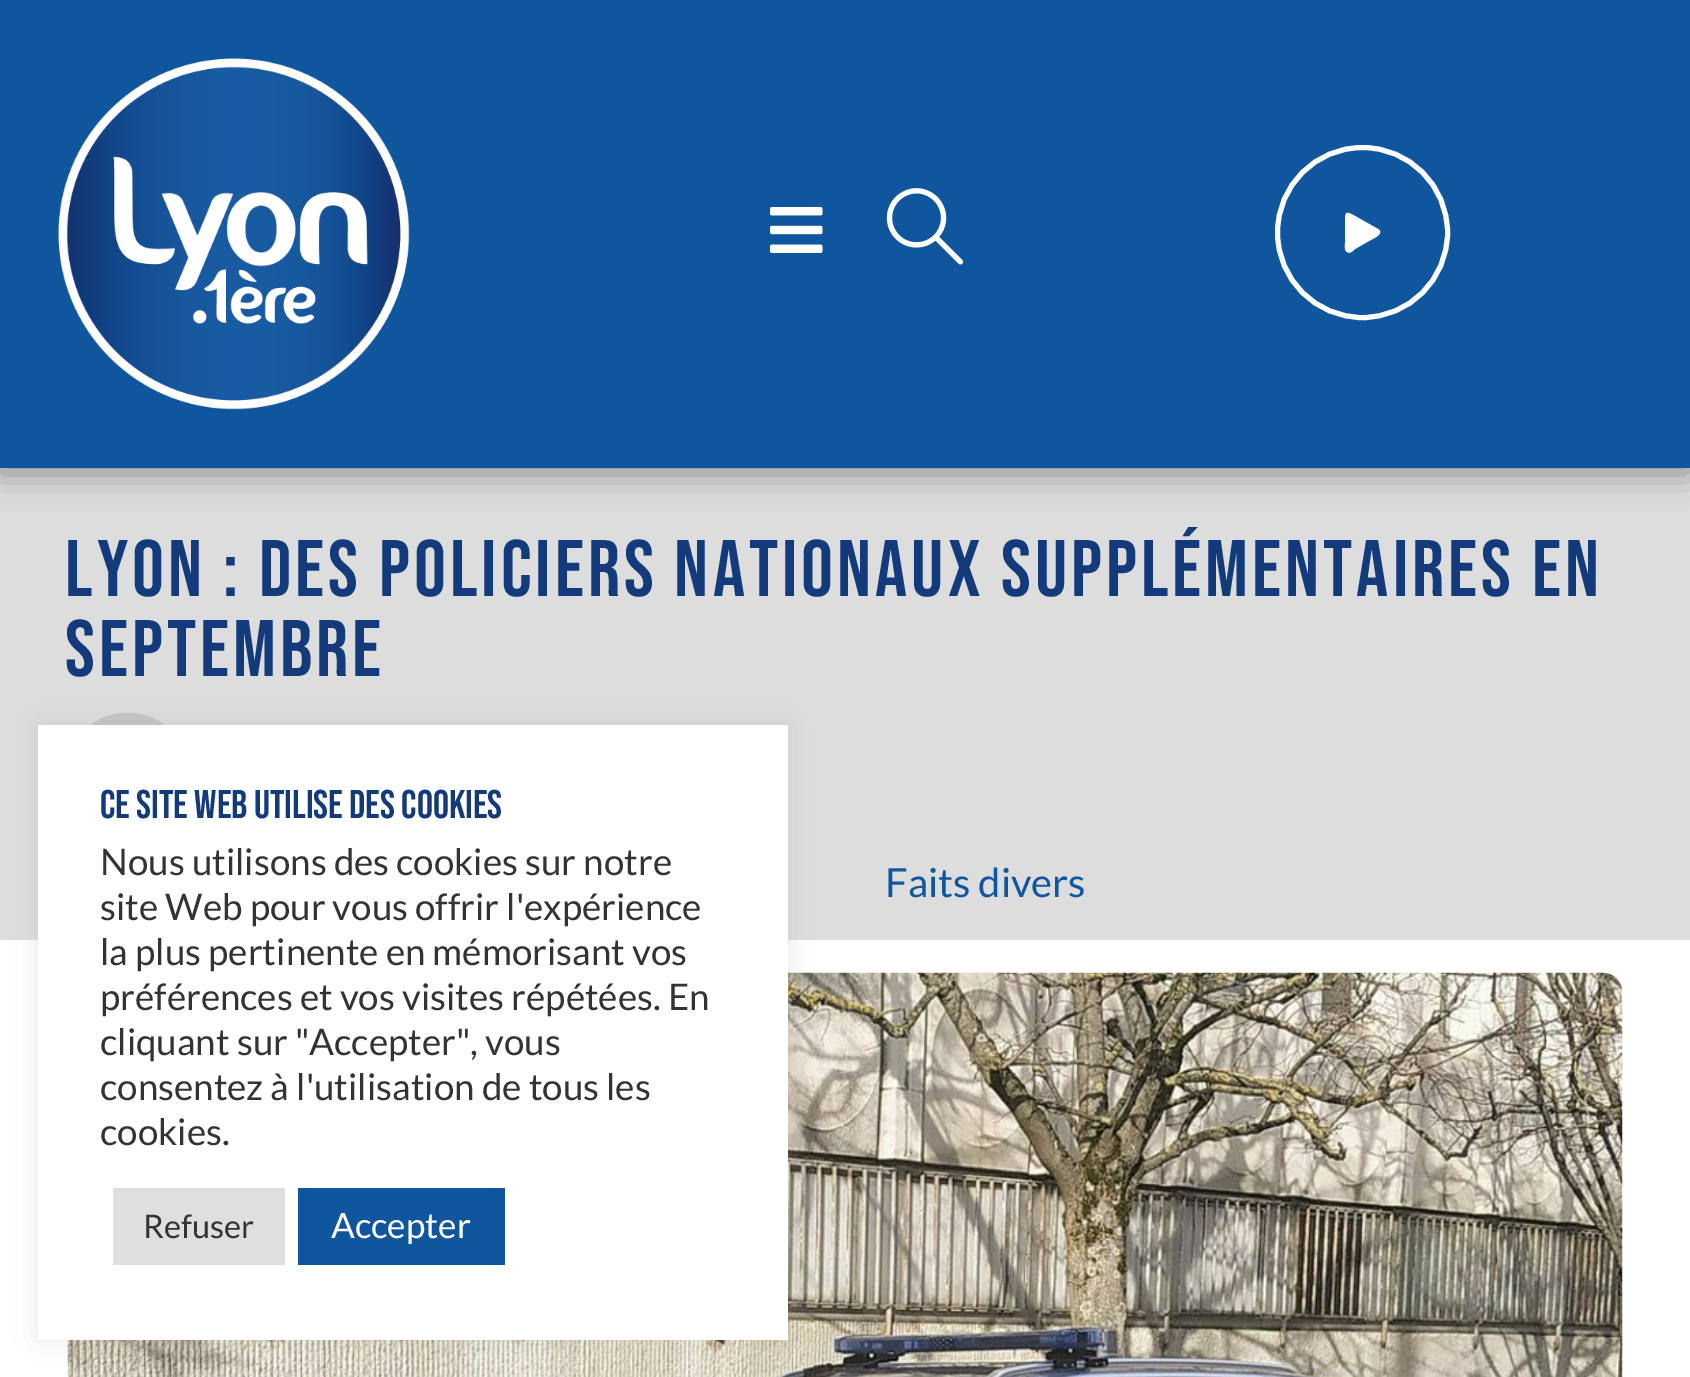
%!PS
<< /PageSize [1690 1377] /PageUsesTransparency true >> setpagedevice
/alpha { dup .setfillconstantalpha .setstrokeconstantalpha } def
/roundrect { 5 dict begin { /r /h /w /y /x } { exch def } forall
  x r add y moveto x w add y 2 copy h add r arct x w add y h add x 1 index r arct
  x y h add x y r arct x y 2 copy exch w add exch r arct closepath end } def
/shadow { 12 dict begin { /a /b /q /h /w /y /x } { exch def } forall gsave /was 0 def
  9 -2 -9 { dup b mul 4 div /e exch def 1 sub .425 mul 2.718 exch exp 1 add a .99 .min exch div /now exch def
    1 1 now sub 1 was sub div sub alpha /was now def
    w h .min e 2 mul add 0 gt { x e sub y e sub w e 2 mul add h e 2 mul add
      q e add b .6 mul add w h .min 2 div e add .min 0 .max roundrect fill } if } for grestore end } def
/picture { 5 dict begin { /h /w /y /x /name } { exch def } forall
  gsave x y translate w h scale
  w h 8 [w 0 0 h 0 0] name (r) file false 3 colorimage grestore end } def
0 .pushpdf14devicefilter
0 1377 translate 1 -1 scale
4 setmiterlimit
1 setgray
0 0 1690 1377 rectfill
0.867 setgray
0 468 1690 472 rectfill
0 setgray
0 5 1690 468 0 16 0.37 shadow
0.059 0.337 0.624 setrgbcolor
0 0 1690 468 rectfill
(img1.rgb) 58 58 352 352 picture
(img2.rgb) 770 207 53 46 picture
(img3.rgb) 886 188 78 77 picture
1 setgray
5 setlinewidth
newpath 1362.5 232.5 85 0 360 arc closepath stroke
newpath 1378 229 moveto 1386 234 1370 240 1369 241 curveto 1355 249 lineto 1353 251 1350 254 1347 252 curveto 1344 250 1345 246 1345 243 curveto 1345 222 lineto 1345 211 1346 211 1355 216 curveto closepath fill
/BebasNeue-Regular [80 0 0 -80 0 0] selectfont
0.075 0.227 0.482 setrgbcolor
65 596 moveto 4 0 (LYON : DES POLICIERS NATIONAUX SUPPLÉMENTAIRES EN) ashow
65 676 moveto 4 0 (SEPTEMBRE) ashow
(img4.rgb) 90 712 75 13 picture
/Lato-Regular [40 0 0 -40 0 0] selectfont
0.059 0.337 0.624 setrgbcolor
885 897 moveto (Faits divers) show
(img5.rgb) 67 972 1556 405 picture
0.675 0.671 0.671 setrgbcolor
38 723 750 615 0 12.5 0.3 shadow
1 setgray
38 725 750 615 rectfill
/BebasNeue-Regular [40 0 0 -40 0 0] selectfont
0.075 0.227 0.482 setrgbcolor
100 818 moveto (CE SITE WEB UTILISE DES COOKIES) show
/Lato-Regular [36.7 0 0 -36.7 0 0] selectfont
0.2 setgray
100 875 moveto (Nous utilisons des cookies sur notre) show
100 920 moveto (site Web pour vous offrir l'expérience) show
100 965 moveto (la plus pertinente en mémorisant vos) show
100 1010 moveto (préférences et vos visites répétées. En) show
100 1055 moveto (cliquant sur "Accepter", vous) show
100 1100 moveto (consentez à l'utilisation de tous les) show
100 1145 moveto (cookies.) show
0.871 0.875 0.878 setrgbcolor
113 1188 172 77 rectfill
/Lato-Regular [32.5 0 0 -32.5 0 0] selectfont
0.2 setgray
143 1238 moveto (Refuser) show
0.059 0.337 0.624 setrgbcolor
298 1188 207 77 rectfill
/Lato-Regular [35 0 0 -35 0 0] selectfont
1 setgray
331 1238 moveto (Accepter) show
.poppdf14devicefilter showpage
